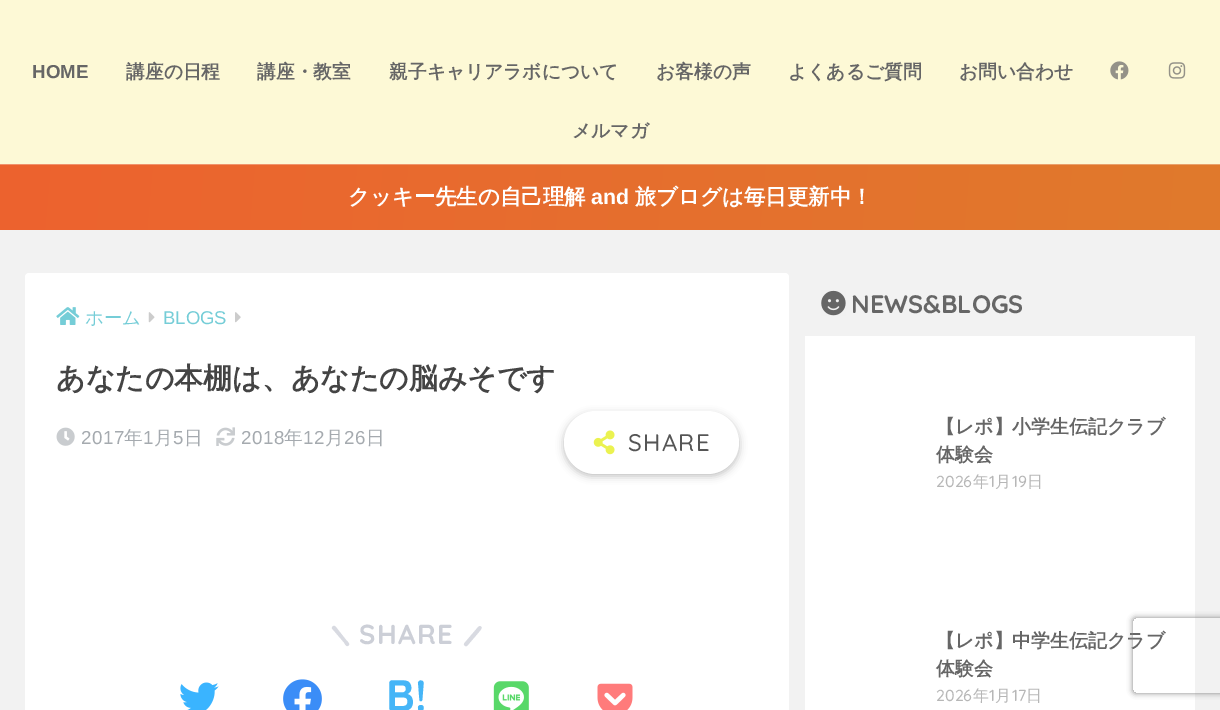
%!PS
<< /PageSize [1220 710] /PageUsesTransparency true >> setpagedevice
/alpha { dup .setfillconstantalpha .setstrokeconstantalpha } def
/roundrect { 5 dict begin { /r /h /w /y /x } { exch def } forall
  x r add y moveto x w add y 2 copy h add r arct x w add y h add x 1 index r arct
  x y h add x y r arct x y 2 copy exch w add exch r arct closepath end } def
/shadow { 12 dict begin { /a /b /q /h /w /y /x } { exch def } forall gsave /was 0 def
  9 -2 -9 { dup b mul 4 div /e exch def 1 sub .425 mul 2.718 exch exp 1 add a .99 .min exch div /now exch def
    1 1 now sub 1 was sub div sub alpha /was now def
    w h .min e 2 mul add 0 gt { x e sub y e sub w e 2 mul add h e 2 mul add
      q e add b .6 mul add w h .min 2 div e add .min 0 .max roundrect fill } if } for grestore end } def
/picture { 5 dict begin { /h /w /y /x /name } { exch def } forall
  gsave x y translate w h scale
  w h 8 [w 0 0 h 0 0] name (r) file false 3 colorimage grestore end } def
0 .pushpdf14devicefilter
0 710 translate 1 -1 scale
4 setmiterlimit
0.949 setgray
0 0 1220 710 rectfill
0.992 0.976 0.839 setrgbcolor
0 0 1220 164 rectfill
/LiberationSans-Bold [18.75 0 0 -18.75 0 0] selectfont
0.4 setgray
32 78 moveto (HOME) show
/WenQuanYiZenHei-Bold [18.75 0 0 -18.75 0 0] selectfont
126 78 moveto (講座の日程) show
257 78 moveto (講座・教室) show
389 78 moveto (親子キャリアラボについて) show
656 78 moveto (お客様の声) show
788 78 moveto (よくあるご質問) show
959 78 moveto (お問い合わせ) show
(img1.rgb) 1110 61 19 19 picture
(img2.rgb) 1168 62 18 17 picture
572 137 moveto (メルマガ) show
gsave newpath 0 164 moveto 1220 164 lineto 1220 165 lineto 0 165 lineto closepath clip newpath
<< /ShadingType 2 /ColorSpace /DeviceRGB /Coords [1.8 79 1218 186] /Extend [true true] /Function << /FunctionType 2 /Domain [0 1] /C0 [0.949 0.569 0.427] /C1 [0.914 0.635 0.42] /N 1 >> >> shfill grestore
gsave newpath 0 165 moveto 1220 165 lineto 1220 230 lineto 0 230 lineto closepath clip newpath
<< /ShadingType 2 /ColorSpace /DeviceRGB /Coords [1.8 144 1218 251] /Extend [true true] /Function << /FunctionType 2 /Domain [0 1] /C0 [0.929 0.384 0.184] /C1 [0.878 0.478 0.173] /N 1 >> >> shfill grestore
/WenQuanYiZenHei-Bold [21.4 0 0 -21.4 0 0] selectfont
1 setgray
348 204 moveto (クッキー先生の自己理解) show
/LiberationSans-Bold [21.4 0 0 -21.4 0 0] selectfont
591 204 moveto (and) show
/WenQuanYiZenHei-Bold [21.4 0 0 -21.4 0 0] selectfont
635 204 moveto (旅ブログは毎日更新中！) show
25 273 764 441 4 roundrect fill
(img3.rgb) 56 307 24 18 picture
/WenQuanYiZenHei-Medium [18.5 0 0 -18.5 0 0] selectfont
0.459 0.804 0.843 setrgbcolor
85 324 moveto (ホーム) show
(img4.rgb) 148 312 7 11 picture
/LiberationSans-Regular [18.5 0 0 -18.5 0 0] selectfont
163 324 moveto (BLOGS) show
(img5.rgb) 235 312 6 11 picture
/WenQuanYiZenHei-Bold [28.9 0 0 -28.9 0 0] selectfont
0.267 setgray
56 388 moveto (あなたの本棚は、あなたの脳みそです) show
(img6.rgb) 56 427 19 19 picture
/LiberationSans-Regular [18.75 0 0 -18.75 0 0] selectfont
0.647 0.667 0.686 setrgbcolor
81 444 moveto 0.5 0 (2017) ashow
/WenQuanYiZenHei-Medium [18.75 0 0 -18.75 0 0] selectfont
124 444 moveto 0.5 0 (年) ashow
/LiberationSans-Regular [18.75 0 0 -18.75 0 0] selectfont
143 444 moveto 0.5 0 (1) ashow
/WenQuanYiZenHei-Medium [18.75 0 0 -18.75 0 0] selectfont
154 444 moveto 0.5 0 (月) ashow
/LiberationSans-Regular [18.75 0 0 -18.75 0 0] selectfont
173 444 moveto 0.5 0 (5) ashow
/WenQuanYiZenHei-Medium [18.75 0 0 -18.75 0 0] selectfont
184 444 moveto 0.5 0 (日) ashow
(img7.rgb) 216 427 19 19 picture
/LiberationSans-Regular [18.75 0 0 -18.75 0 0] selectfont
241 444 moveto 0.5 0 (2018) ashow
/WenQuanYiZenHei-Medium [18.75 0 0 -18.75 0 0] selectfont
284 444 moveto 0.5 0 (年) ashow
/LiberationSans-Regular [18.75 0 0 -18.75 0 0] selectfont
303 444 moveto 0.5 0 (12) ashow
/WenQuanYiZenHei-Medium [18.75 0 0 -18.75 0 0] selectfont
325 444 moveto 0.5 0 (月) ashow
/LiberationSans-Regular [18.75 0 0 -18.75 0 0] selectfont
344 444 moveto 0.5 0 (26) ashow
/WenQuanYiZenHei-Medium [18.75 0 0 -18.75 0 0] selectfont
366 444 moveto 0.5 0 (日) ashow
0 setgray
564 414 175 62 31 4 0.25 shadow
1 setgray
564 411 175 63 31.5 roundrect fill
(img8.rgb) 593 430 22 25 picture
/Quicksand-Medium [24 0 0 -24 0 0] selectfont
0.333 setgray
628 451 moveto 1.25 0 (SHARE) ashow
0.847 0.855 0.882 setrgbcolor
newpath 335.5 626.5 moveto 346.5 640.5 lineto 347.5 641.5 350.5 644 348.5 645.5 curveto 346.5 647.5 344.5 643.5 344 642.5 curveto 332 628.5 lineto 331.5 626.5 334 625 335.5 626.5 curveto closepath fill
/Quicksand-Bold [27.5 0 0 -27.5 0 0] selectfont
0.8 0.812 0.843 setrgbcolor
359 644 moveto 1.25 0 (SHARE) ashow
0.847 0.855 0.882 setrgbcolor
newpath 464.5 643 moveto 476 629.5 lineto 477 628.5 479 625 481 626.5 curveto 483 628 479.5 631 479 632 curveto 467 646 lineto 465 647 463 644.5 464.5 643 curveto closepath fill
(img9.rgb) 180 682 39 28 picture
(img10.rgb) 283 679 39 31 picture
/Quicksand-Bold [44 0 0 -44 0 0] selectfont
0.271 0.71 0.969 setrgbcolor
386 711 moveto (B!) show
(img11.rgb) 493 681 36 29 picture
(img12.rgb) 597 683 36 27 picture
1 setgray
805 336 390 374 rectfill
(img13.rgb) 821 290 25 26 picture
/Quicksand-Bold [25.25 0 0 -25.25 0 0] selectfont
0.4 setgray
851 313 moveto (NEWS&BLOGS) show
/WenQuanYiZenHei-Bold [18.9 0 0 -18.9 0 0] selectfont
936 433 moveto (【レポ】小学生伝記クラブ) show
936 461 moveto (体験会) show
/Quicksand-Medium [16 0 0 -16 0 0] selectfont
0.718 setgray
936 487 moveto (2026) show
/WenQuanYiZenHei-Medium [16 0 0 -16 0 0] selectfont
973 487 moveto (年) show
/Quicksand-Medium [16 0 0 -16 0 0] selectfont
989 487 moveto (1) show
/WenQuanYiZenHei-Medium [16 0 0 -16 0 0] selectfont
995 487 moveto (月) show
/Quicksand-Medium [16 0 0 -16 0 0] selectfont
1012 487 moveto (19) show
/WenQuanYiZenHei-Medium [16 0 0 -16 0 0] selectfont
1027 487 moveto (日) show
/WenQuanYiZenHei-Bold [18.9 0 0 -18.9 0 0] selectfont
0.4 setgray
936 647 moveto (【レポ】中学生伝記クラブ) show
936 675 moveto (体験会) show
/Quicksand-Medium [16 0 0 -16 0 0] selectfont
0.718 setgray
936 701 moveto (2026) show
/WenQuanYiZenHei-Medium [16 0 0 -16 0 0] selectfont
973 701 moveto (年) show
/Quicksand-Medium [16 0 0 -16 0 0] selectfont
989 701 moveto (1) show
/WenQuanYiZenHei-Medium [16 0 0 -16 0 0] selectfont
995 701 moveto (月) show
/Quicksand-Medium [16 0 0 -16 0 0] selectfont
1012 701 moveto (17) show
/WenQuanYiZenHei-Medium [16 0 0 -16 0 0] selectfont
1026 701 moveto (日) show
gsave
newpath 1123 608 moveto 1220 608 lineto 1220 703 lineto 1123 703 lineto closepath 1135.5 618 moveto 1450.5 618 lineto 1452 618 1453 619 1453 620.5 curveto 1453 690.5 lineto 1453 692 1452 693 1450.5 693 curveto 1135.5 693 lineto 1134 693 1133 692 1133 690.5 curveto 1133 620.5 lineto 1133 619 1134 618 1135.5 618 curveto closepath eoclip newpath
0.502 setgray
1133 618 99 75 2.5 3 1 shadow
grestore
.poppdf14devicefilter showpage
